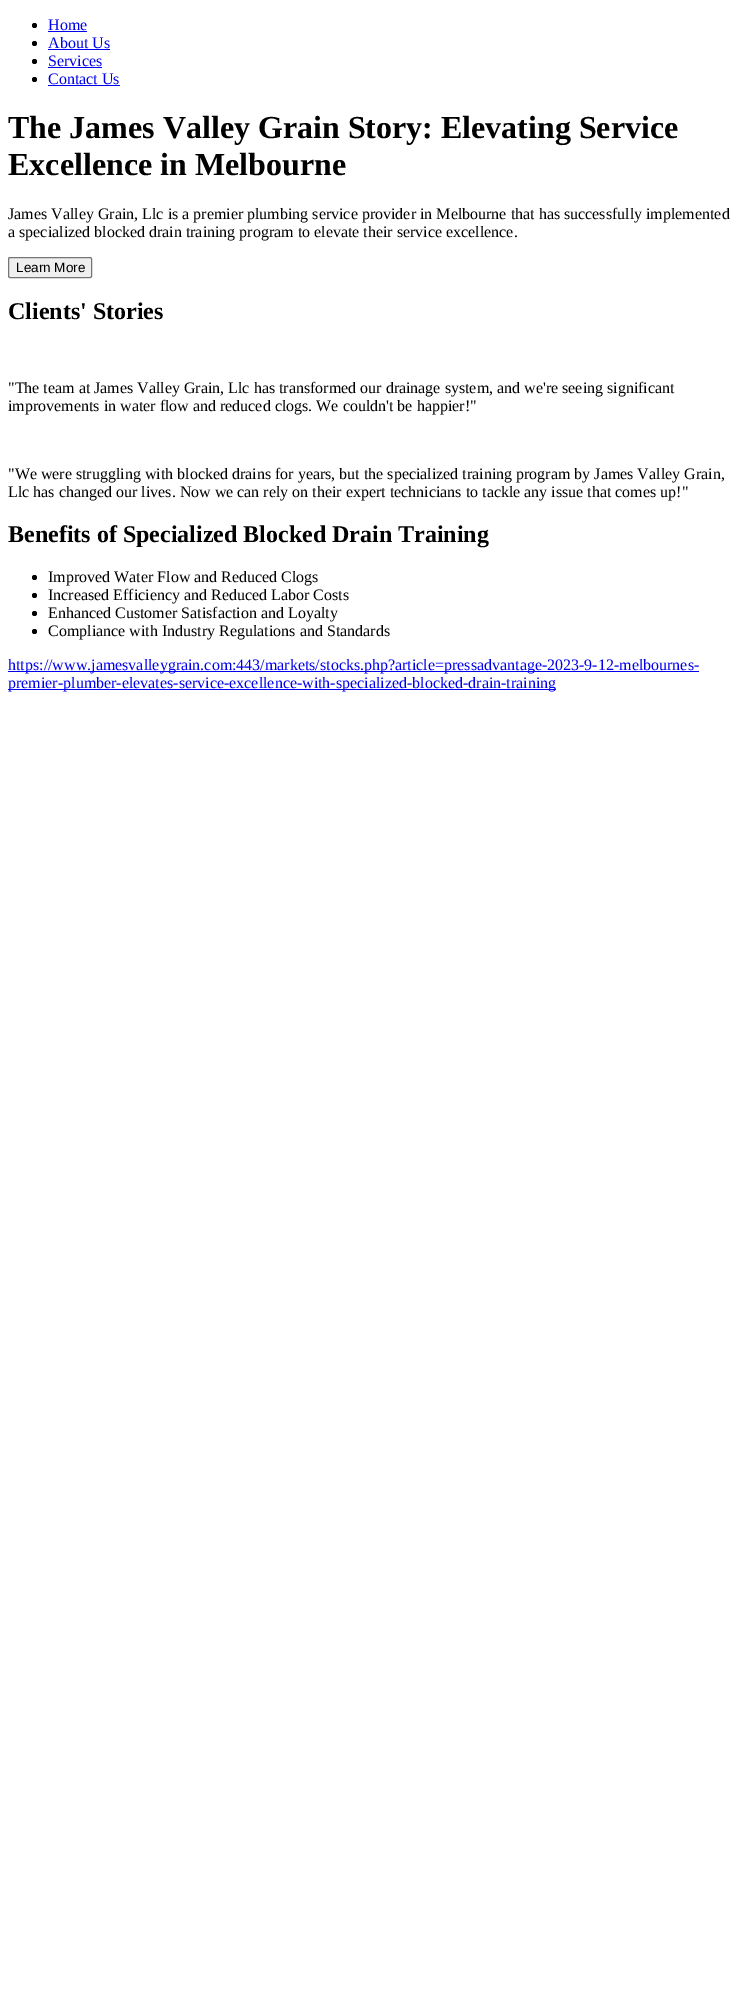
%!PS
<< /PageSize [741 1999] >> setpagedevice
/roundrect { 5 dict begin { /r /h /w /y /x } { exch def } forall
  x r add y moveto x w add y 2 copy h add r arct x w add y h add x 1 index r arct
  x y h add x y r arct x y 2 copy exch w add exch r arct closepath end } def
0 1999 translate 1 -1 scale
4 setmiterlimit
1 setgray
0 0 741 1999 rectfill
0 setgray
newpath 34.5 25.5 2.5 0 360 arc closepath fill
/LiberationSerif-Regular [16 0 0 -16 0 0] selectfont
0 0 0.933 setrgbcolor
48 30 moveto (Home) show
48 31 39 1 rectfill
0 setgray
newpath 34.5 43.5 2.5 0 360 arc closepath fill
0 0 0.933 setrgbcolor
48 48 moveto (About Us) show
48 49 62 1 rectfill
0 setgray
newpath 34.5 61.5 2.5 0 360 arc closepath fill
0 0 0.933 setrgbcolor
48 66 moveto (Services) show
48 67 54 1 rectfill
0 setgray
newpath 34.5 79.5 2.5 0 360 arc closepath fill
0 0 0.933 setrgbcolor
48 84 moveto (Contact Us) show
48 85 72 1 rectfill
/LiberationSerif-Bold [32 0 0 -32 0 0] selectfont
0 setgray
8 138 moveto (The James Valley Grain Story: Elevating Service) show
8 175 moveto (Excellence in Melbourne) show
/LiberationSerif-Regular [16 0 0 -16 0 0] selectfont
8 219 moveto (James Valley Grain, Llc is a premier plumbing service provider in Melbourne that has successfully implemented) show
8 237 moveto (a specialized blocked drain training program to elevate their service excellence.) show
0.937 setgray
8.5 257.5 83 20 1.5 roundrect gsave fill grestore
0.463 setgray
stroke
/LiberationSans-Regular [13.5 0 0 -13.5 0 0] selectfont
0 setgray
16 272 moveto (Learn More) show
/LiberationSerif-Bold [24 0 0 -24 0 0] selectfont
8 319 moveto (Clients' Stories) show
/LiberationSerif-Regular [16 0 0 -16 0 0] selectfont
8 393 moveto ("The team at James Valley Grain, Llc has transformed our drainage system, and we're seeing significant) show
8 411 moveto (improvements in water flow and reduced clogs. We couldn't be happier!") show
8 479 moveto ("We were struggling with blocked drains for years, but the specialized training program by James Valley Grain,) show
8 497 moveto (Llc has changed our lives. Now we can rely on their expert technicians to tackle any issue that comes up!") show
/LiberationSerif-Bold [24 0 0 -24 0 0] selectfont
8 542 moveto (Benefits of Specialized Blocked Drain Training) show
newpath 34.5 577.5 2.5 0 360 arc closepath fill
/LiberationSerif-Regular [16 0 0 -16 0 0] selectfont
48 582 moveto (Improved Water Flow and Reduced Clogs) show
newpath 34.5 595.5 2.5 0 360 arc closepath fill
48 600 moveto (Increased Efficiency and Reduced Labor Costs) show
newpath 34.5 613.5 2.5 0 360 arc closepath fill
48 618 moveto (Enhanced Customer Satisfaction and Loyalty) show
newpath 34.5 631.5 2.5 0 360 arc closepath fill
48 636 moveto (Compliance with Industry Regulations and Standards) show
0 0 0.933 setrgbcolor
8 671 691 1 rectfill
8 670 moveto (https://www.jamesvalleygrain.com:443/markets/stocks.php?article=pressadvantage-2023-9-12-melbournes-) show
8 689 548 1 rectfill
8 688 moveto (premier-plumber-elevates-service-excellence-with-specialized-blocked-drain-training) show
showpage
